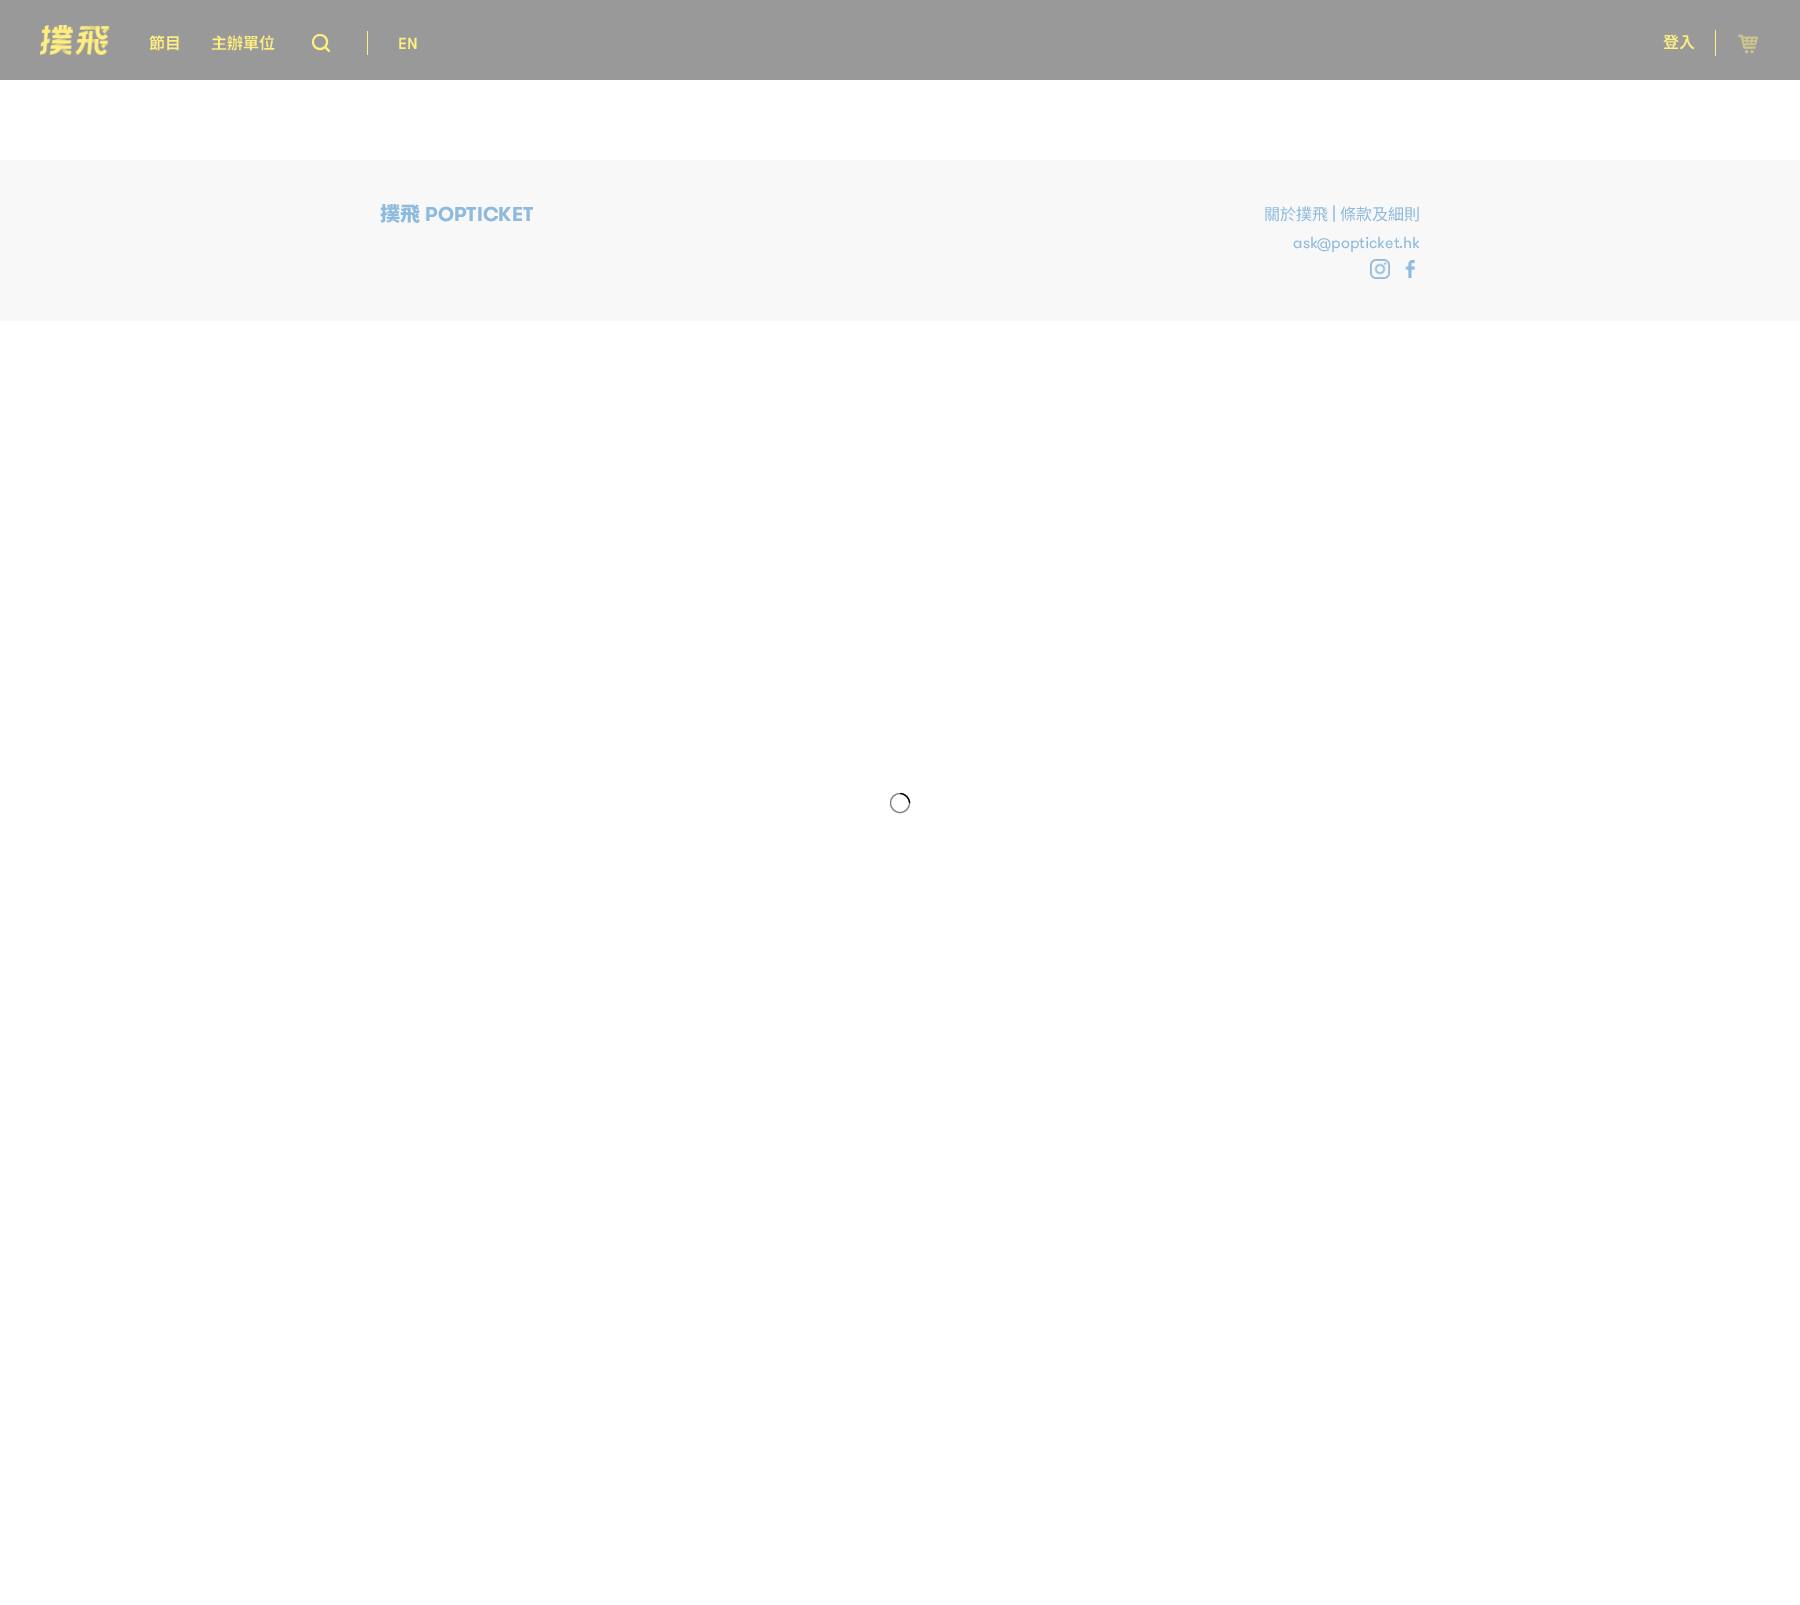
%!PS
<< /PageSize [1800 1605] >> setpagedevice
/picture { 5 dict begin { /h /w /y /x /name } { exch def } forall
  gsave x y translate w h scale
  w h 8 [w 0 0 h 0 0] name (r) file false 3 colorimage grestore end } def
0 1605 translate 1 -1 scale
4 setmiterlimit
1 setgray
0 0 1800 1605 rectfill
0.6 setgray
0 0 1800 80 rectfill
(img1.rgb) 40 25 70 30 picture
/NotoSansTC-SemiBold [16 0 0 -16 0 0] selectfont
1 0.933 0.502 setrgbcolor
149 49 moveto (節目) show
211 49 moveto (主辦單位) show
(img2.rgb) 311 33 20 20 picture
367 31 1 24 rectfill
/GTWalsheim-Medium [16 0 0 -16 0 0] selectfont
398 49 moveto (EN) show
/NotoSansTC-SemiBold [16 0 0 -16 0 0] selectfont
1663 48 moveto (登入) show
1715 30 1 26 rectfill
(img3.rgb) 1738 34 20 20 picture
0.973 setgray
0 160 1800 161 rectfill
/NotoSansTC-Black [20 0 0 -20 0 0] selectfont
0.553 0.729 0.867 setrgbcolor
380 221 moveto (撲飛) show
/GTWalsheim-Bold [20 0 0 -20 0 0] selectfont
425 221 moveto (POPTICKET) show
/NotoSansTC-Regular [16 0 0 -16 0 0] selectfont
1264 220 moveto (關於撲飛) show
/GTWalsheim-Regular [16 0 0 -16 0 0] selectfont
1332 218 moveto (|) show
/NotoSansTC-Regular [16 0 0 -16 0 0] selectfont
1340 220 moveto (條款及細則) show
/GTWalsheim-Regular [16 0 0 -16 0 0] selectfont
1293 248 moveto (ask@popticket.hk) show
(img4.rgb) 1370 259 20 20 picture
(img5.rgb) 1405 260 11 19 picture
0.502 setgray
1.1 setlinewidth
newpath 900 803 9.5 0 360 arc closepath stroke
0 setgray
newpath 909.5 803 moveto 909.5 798 905 793.5 900 793.5 curveto stroke
showpage
